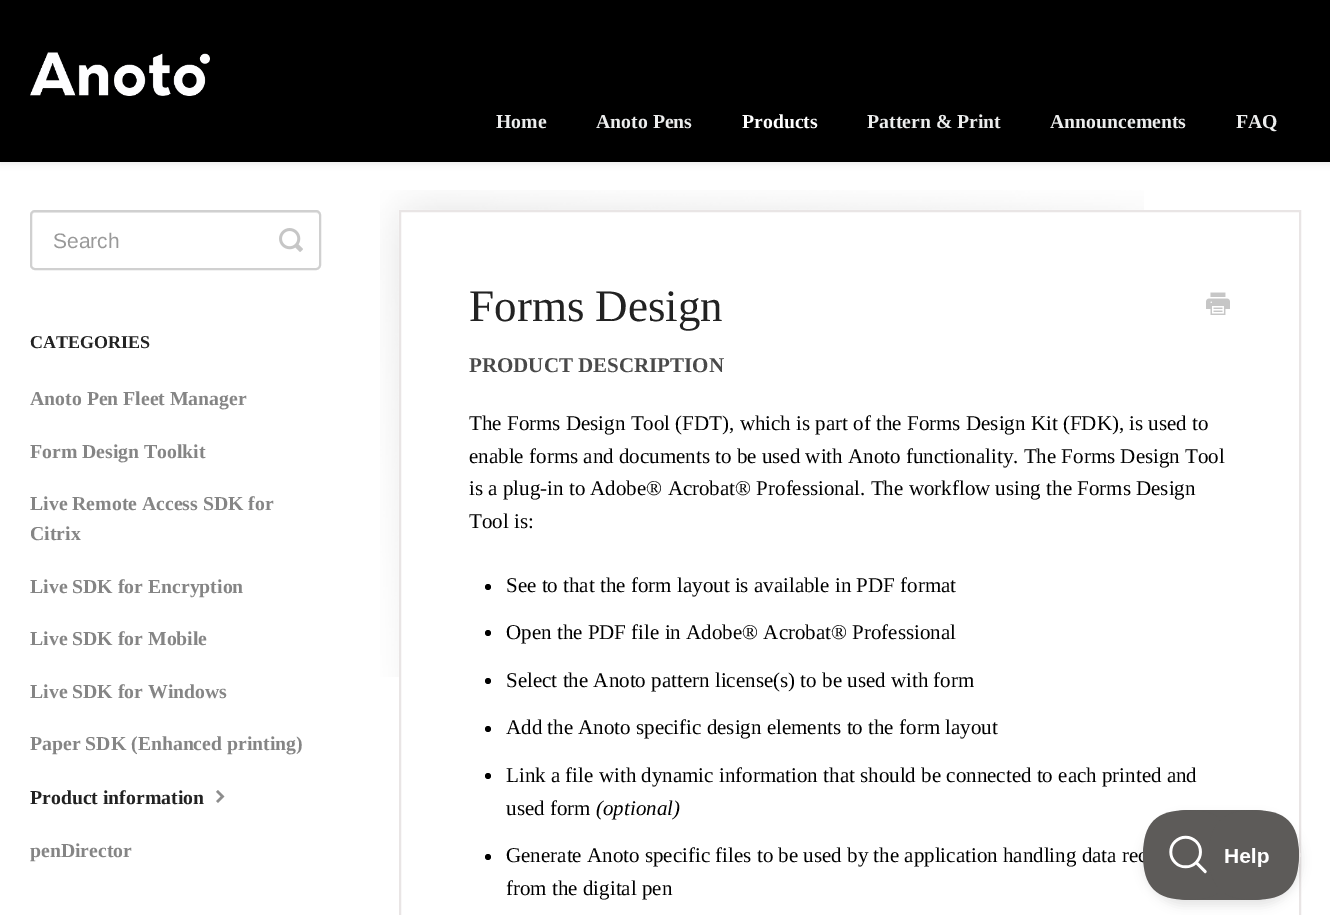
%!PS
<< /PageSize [1330 915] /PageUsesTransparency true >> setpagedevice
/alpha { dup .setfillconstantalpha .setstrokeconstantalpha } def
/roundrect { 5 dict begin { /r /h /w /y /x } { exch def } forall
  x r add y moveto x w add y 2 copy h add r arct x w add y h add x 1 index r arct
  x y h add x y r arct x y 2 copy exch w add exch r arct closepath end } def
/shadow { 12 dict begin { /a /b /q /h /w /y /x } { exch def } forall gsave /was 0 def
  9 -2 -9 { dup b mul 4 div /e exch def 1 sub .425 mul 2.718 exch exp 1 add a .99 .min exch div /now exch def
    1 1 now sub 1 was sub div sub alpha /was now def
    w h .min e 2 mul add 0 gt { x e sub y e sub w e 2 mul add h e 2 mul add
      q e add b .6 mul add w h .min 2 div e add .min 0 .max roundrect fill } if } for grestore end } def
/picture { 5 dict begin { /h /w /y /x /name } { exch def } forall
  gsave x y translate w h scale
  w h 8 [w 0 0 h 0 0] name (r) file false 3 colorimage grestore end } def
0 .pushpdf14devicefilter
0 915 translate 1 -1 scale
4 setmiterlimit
1 setgray
0 0 1330 915 rectfill
0 setgray
0 2 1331 162 0 3 0.07 shadow
0 0 1330 162 rectfill
(img1.rgb) 30 52 180 44 picture
/LiberationSerif-Bold [19.75 0 0 -19.75 0 0] selectfont
0.925 0.929 0.929 setrgbcolor
496 128 moveto (Home) show
596 128 moveto (Anoto Pens) show
1 setgray
742 128 moveto (Products) show
0.925 0.929 0.929 setrgbcolor
867 128 moveto (Pattern & Print) show
1050 128 moveto (Announcements) show
1236 128 moveto (FAQ) show
0.925 setgray
newpath 34 213 moveto 316 213 lineto 318 213 320 214 320 216 curveto 320 214 319 212 317 212 curveto 35 212 lineto 33 212 32 214 32 216 curveto 32 214 33 213 34 213 curveto closepath fill
0.816 setgray
2 setlinewidth
31 211 289 58 4 roundrect stroke
/LiberationSans-Regular [21 0 0 -21 0 0] selectfont
0.6 setgray
53 248 moveto (Search) show
(img2.rgb) 279 228 24 24 picture
/LiberationSerif-Bold [18 0 0 -18 0 0] selectfont
0.133 setgray
30 348 moveto (CATEGORIES) show
/LiberationSerif-Bold [19.75 0 0 -19.75 0 0] selectfont
0.522 setgray
30 405 moveto (Anoto Pen Fleet Manager) show
30 458 moveto (Form Design Toolkit) show
30 510 moveto (Live Remote Access SDK for) show
30 540 moveto (Citrix) show
30 593 moveto (Live SDK for Encryption) show
30 645 moveto (Live SDK for Mobile) show
30 698 moveto (Live SDK for Windows) show
30 750 moveto (Paper SDK \(Enhanced printing\)) show
0.133 setgray
30 804 moveto (Product information) show
(img3.rgb) 216 790 9 13 picture
0.522 setgray
30 857 moveto (penDirector) show
(img4.rgb) 380 190 764 487 picture
0.914 0.898 0.898 setrgbcolor
400 211 900 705 rectstroke
/LiberationSerif-Regular [45 0 0 -45 0 0] selectfont
0.133 setgray
469 321 moveto (Forms Design) show
(img5.rgb) 1206 292 24 23 picture
/LiberationSerif-Bold [21 0 0 -21 0 0] selectfont
0.286 setgray
469 372 moveto (PRODUCT DESCRIPTION) show
/LiberationSerif-Regular [21 0 0 -21 0 0] selectfont
0 setgray
469 430 moveto (The Forms Design Tool \(FDT\), which is part of the Forms Design Kit \(FDK\), is used to) show
469 463 moveto (enable forms and documents to be used with Anoto functionality. The Forms Design Tool) show
469 495 moveto (is a plug-in to Adobe® Acrobat® Professional. The workflow using the Forms Design) show
469 528 moveto (Tool is:) show
newpath 488 587 3 0 360 arc closepath fill
506 592 moveto (See to that the form layout is available in PDF format) show
newpath 488 633 3 0 360 arc closepath fill
506 639 moveto (Open the PDF file in Adobe® Acrobat® Professional) show
newpath 488 681 3 0 360 arc closepath fill
506 687 moveto (Select the Anoto pattern license\(s\) to be used with form) show
newpath 488 729 3 0 360 arc closepath fill
506 734 moveto (Add the Anoto specific design elements to the form layout) show
newpath 488 776 3 0 360 arc closepath fill
506 782 moveto (Link a file with dynamic information that should be connected to each printed and) show
506 815 moveto (used form) show
/LiberationSerif-Italic [21 0 0 -21 0 0] selectfont
596 815 moveto (\(optional\)) show
newpath 488 857 3 0 360 arc closepath fill
/LiberationSerif-Regular [21 0 0 -21 0 0] selectfont
506 862 moveto (Generate Anoto specific files to be used by the application handling data rec) show
506 895 moveto (from the digital pen) show
gsave
newpath 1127 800 moveto 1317 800 lineto 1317 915 lineto 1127 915 lineto closepath 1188 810 moveto 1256 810 lineto 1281 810 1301 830 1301 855 curveto 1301 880 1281 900 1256 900 curveto 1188 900 lineto 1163 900 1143 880 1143 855 curveto 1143 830 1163 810 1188 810 curveto closepath eoclip newpath
1143 816 158 90 45 5 0.1 shadow
grestore
(img6.rgb) 1143 810 156 90 picture
.poppdf14devicefilter showpage
